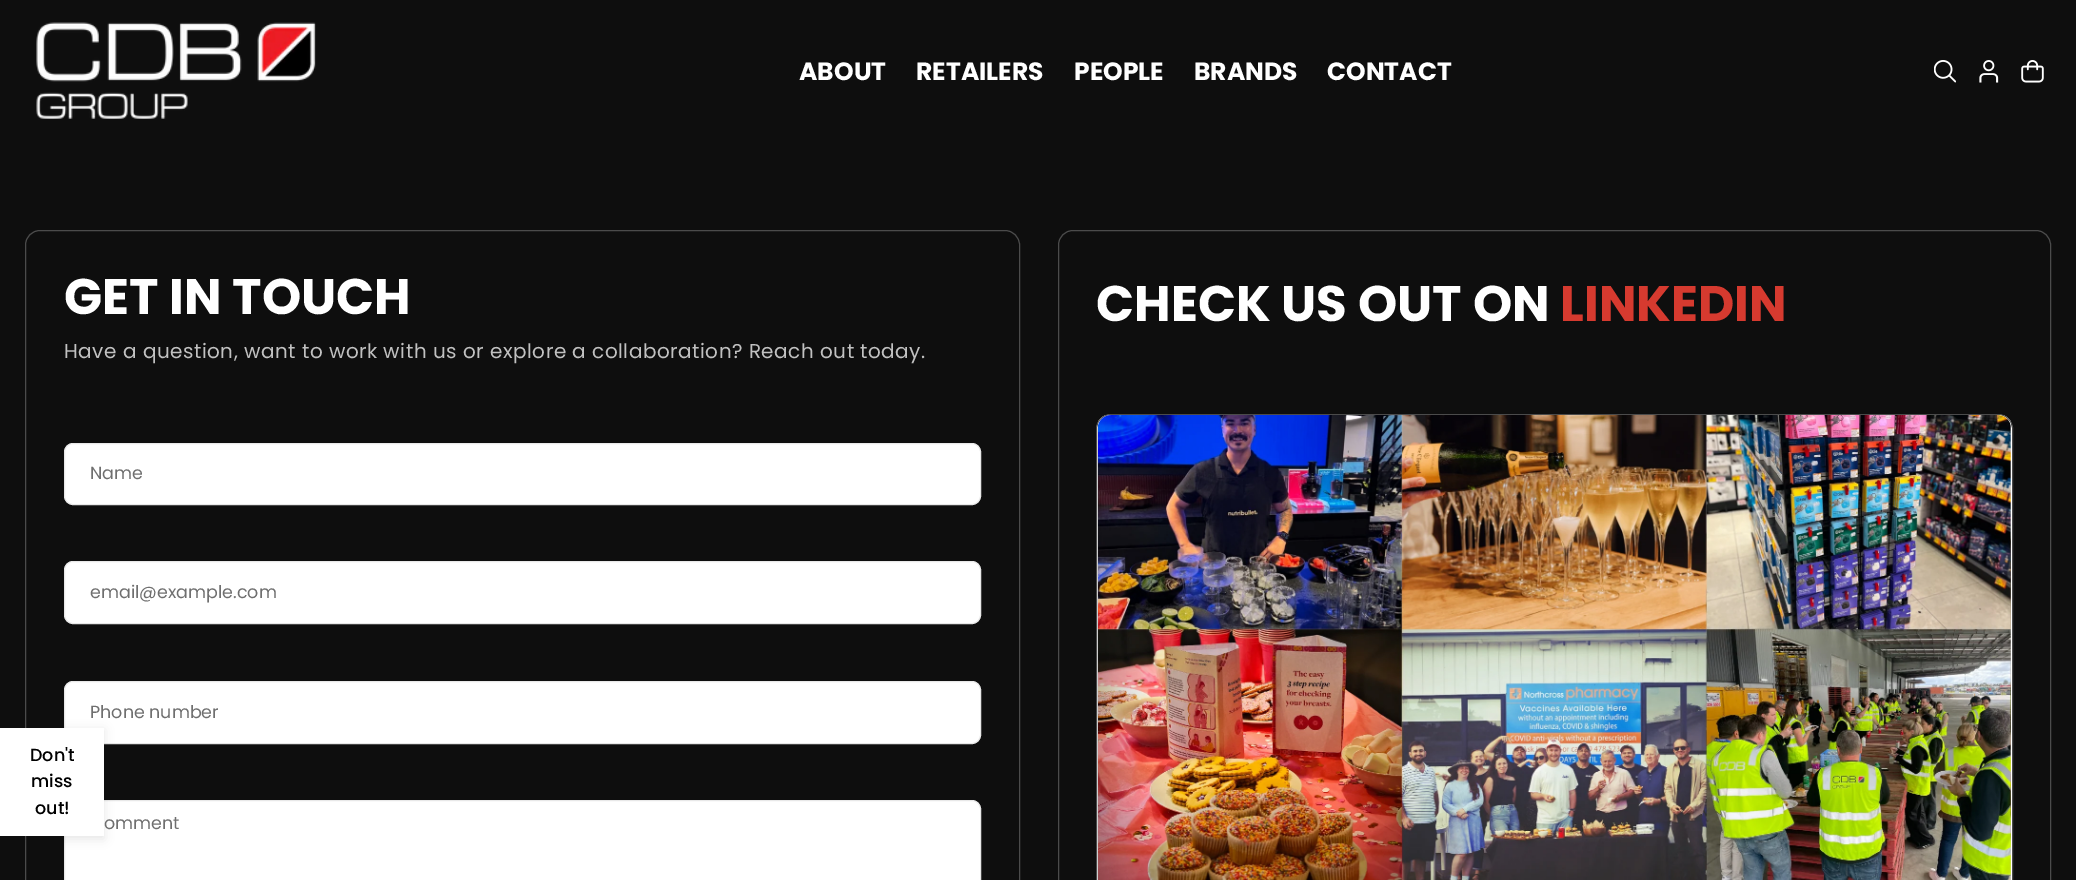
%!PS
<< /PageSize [2076 880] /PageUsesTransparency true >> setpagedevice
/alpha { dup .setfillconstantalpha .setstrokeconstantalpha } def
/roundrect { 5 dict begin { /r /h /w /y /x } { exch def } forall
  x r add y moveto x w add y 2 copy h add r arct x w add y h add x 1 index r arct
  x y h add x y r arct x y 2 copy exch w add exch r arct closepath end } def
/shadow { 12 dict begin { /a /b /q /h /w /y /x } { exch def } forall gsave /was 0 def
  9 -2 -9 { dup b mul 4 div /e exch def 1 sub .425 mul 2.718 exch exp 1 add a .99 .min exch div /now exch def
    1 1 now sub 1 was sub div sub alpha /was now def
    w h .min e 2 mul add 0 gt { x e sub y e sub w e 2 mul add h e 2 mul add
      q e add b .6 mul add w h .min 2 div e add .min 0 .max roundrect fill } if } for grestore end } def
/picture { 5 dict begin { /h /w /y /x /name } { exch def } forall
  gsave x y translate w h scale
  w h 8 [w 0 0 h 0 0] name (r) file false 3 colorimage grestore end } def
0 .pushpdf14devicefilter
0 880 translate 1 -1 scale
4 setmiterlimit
0.055 setgray
0 0 2076 880 rectfill
(img1.rgb) 36 22 280 97 picture
/Poppins-Bold [25 0 0 -25 0 0] selectfont
1 setgray
799 80 moveto (ABOUT) show
916 80 moveto (RETAILERS) show
1074 80 moveto (PEOPLE) show
1194 80 moveto (BRANDS) show
1327 80 moveto (CONTACT) show
(img2.rgb) 1934 60 22 23 picture
(img3.rgb) 1979 60 20 23 picture
(img4.rgb) 2021 60 23 23 picture
0.294 setgray
25.5 230.5 994 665 14.5 roundrect stroke
1 setgray
64.5 681.5 916 62 8.5 roundrect gsave fill grestore
0.91 setgray
stroke
1 setgray
64.5 800.5 916 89 8.5 roundrect gsave fill grestore
0.91 setgray
stroke
0 setgray
0 730 104 109 0 5 0.1 shadow
1 setgray
0 728 104 108 rectfill
/Poppins-Medium [17.5 0 0 -17.5 0 0] selectfont
0 setgray
30 761 moveto (Don't) show
31 787 moveto (miss) show
35 814 moveto (out!) show
/Poppins-Bold [50 0 0 -50 0 0] selectfont
1 setgray
64 314 moveto (GET IN TOUCH) show
/Poppins-Regular [20 0 0 -20 0 0] selectfont
0.757 setgray
64 358 moveto 0.5 0 (Have a question, want to work with us or explore a collaboration? Reach out today.) ashow
1 setgray
64.5 443.5 916 61 8.5 roundrect gsave fill grestore
0.91 setgray
stroke
/Poppins-Regular [17.5 0 0 -17.5 0 0] selectfont
0.435 setgray
90 479 moveto (Name) show
1 setgray
64.5 561.5 916 62 8.5 roundrect gsave fill grestore
0.91 setgray
stroke
0.435 setgray
90 598 moveto (email@example.com) show
90 718 moveto (Phone number) show
104 829 moveto (omment) show
0.294 setgray
1058.5 230.5 992 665 14.5 roundrect stroke
/Poppins-Bold [50 0 0 -50 0 0] selectfont
1 setgray
1096 321 moveto (CHECK US OUT ON) show
0.839 0.227 0.184 setrgbcolor
1560 321 moveto (LINKEDIN) show
1 setgray
1096.5 414.5 916 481 14.5 roundrect gsave fill grestore
0.294 setgray
stroke
(img5.rgb) 1098 415 913 465 picture
.poppdf14devicefilter showpage
